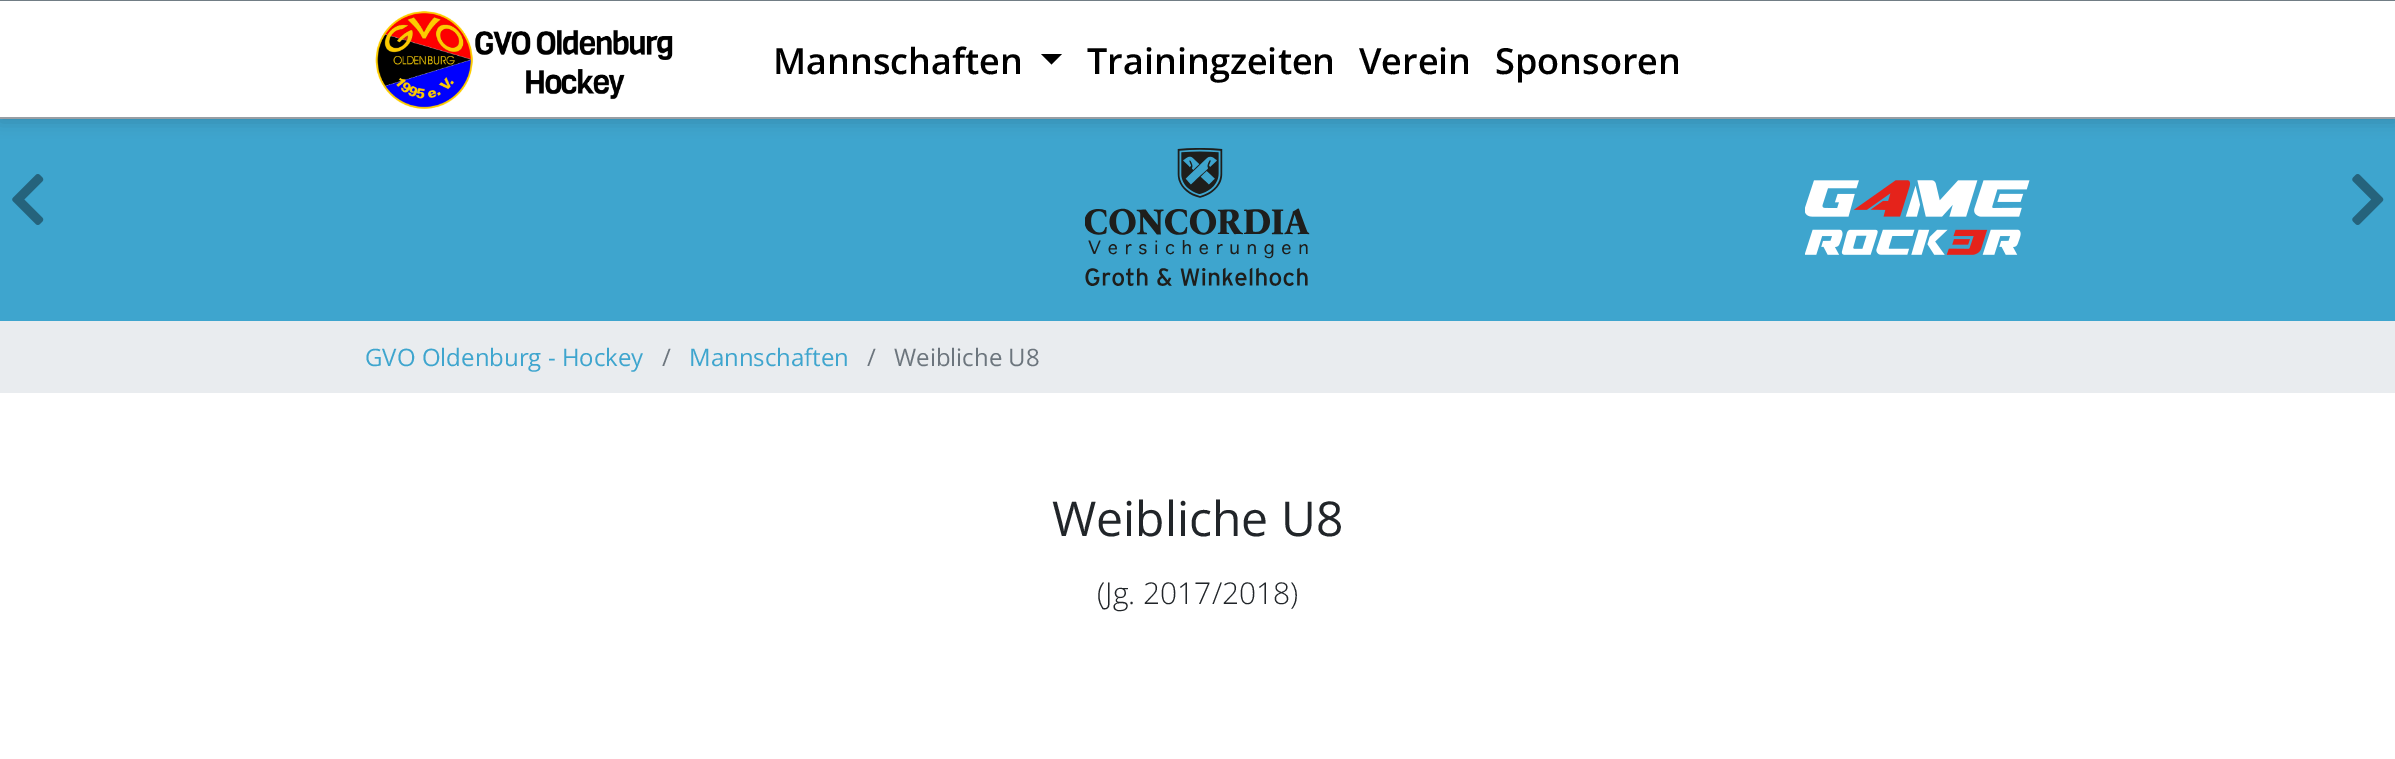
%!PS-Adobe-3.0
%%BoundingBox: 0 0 2395 759
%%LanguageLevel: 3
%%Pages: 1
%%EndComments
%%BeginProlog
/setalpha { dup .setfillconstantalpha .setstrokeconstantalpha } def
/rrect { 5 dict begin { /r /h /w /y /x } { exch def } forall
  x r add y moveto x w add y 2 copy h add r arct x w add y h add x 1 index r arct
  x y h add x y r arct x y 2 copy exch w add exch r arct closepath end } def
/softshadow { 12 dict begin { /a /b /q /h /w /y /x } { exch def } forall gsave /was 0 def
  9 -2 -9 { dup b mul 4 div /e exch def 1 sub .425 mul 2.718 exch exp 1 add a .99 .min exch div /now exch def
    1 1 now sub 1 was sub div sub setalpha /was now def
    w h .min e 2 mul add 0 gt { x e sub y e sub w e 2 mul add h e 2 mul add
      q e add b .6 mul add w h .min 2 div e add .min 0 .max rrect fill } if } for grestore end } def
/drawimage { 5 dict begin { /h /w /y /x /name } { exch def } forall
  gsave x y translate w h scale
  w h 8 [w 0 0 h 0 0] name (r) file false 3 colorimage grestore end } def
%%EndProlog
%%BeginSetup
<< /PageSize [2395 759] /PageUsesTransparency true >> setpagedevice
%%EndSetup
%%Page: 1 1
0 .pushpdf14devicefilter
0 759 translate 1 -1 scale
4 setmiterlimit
1 setgray
0 0 2395 759 rectfill
0.243 0.647 0.808 setrgbcolor
0 119 2395 202 rectfill
0 setgray
0 2 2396 120 0 7.5 0.15 softshadow
1 setgray
0 1 2395 116 rectfill
0.443 0.49 0.522 setrgbcolor
0 0 2395 1 rectfill
0.596 0.62 0.643 setrgbcolor
0 117 2395 2 rectfill
(images/1.raw) 375 11 298 98 drawimage
0 setgray
newpath 1041 54 moveto 1062 54 lineto 1051.5 64.5 lineto closepath fill
(images/2.raw) 1085 148 225 138 drawimage
(images/3.raw) 1805 180 225 75 drawimage
(images/4.raw) 12 174 32 51 drawimage
(images/5.raw) 2352 174 32 51 drawimage
0.914 0.925 0.937 setrgbcolor
0 321 2395 72 rectfill
/OpenSans-SemiBold [36 0 0 -36 0 0] selectfont
0 setgray
773 74 moveto (Mannschaften) show
1087 74 moveto (Trainingzeiten) show
1359 74 moveto (Verein) show
1495 74 moveto (Sponsoren) show
/OpenSans-Regular [24 0 0 -24 0 0] selectfont
0.243 0.647 0.808 setrgbcolor
365 366 moveto (GVO Oldenburg - Hockey) show
0.424 0.459 0.49 setrgbcolor
662 366 moveto (/) show
0.243 0.647 0.808 setrgbcolor
689 366 moveto (Mannschaften) show
0.424 0.459 0.49 setrgbcolor
867 366 moveto (/) show
894 366 moveto (Weibliche U8) show
/OpenSans-Regular [48 0 0 -48 0 0] selectfont
0.129 0.145 0.161 setrgbcolor
1052 536 moveto (Weibliche U8) show
/OpenSans-Light [30 0 0 -30 0 0] selectfont
1097 604 moveto (\(Jg. 2017/2018\)) show
.poppdf14devicefilter showpage
%%EOF
